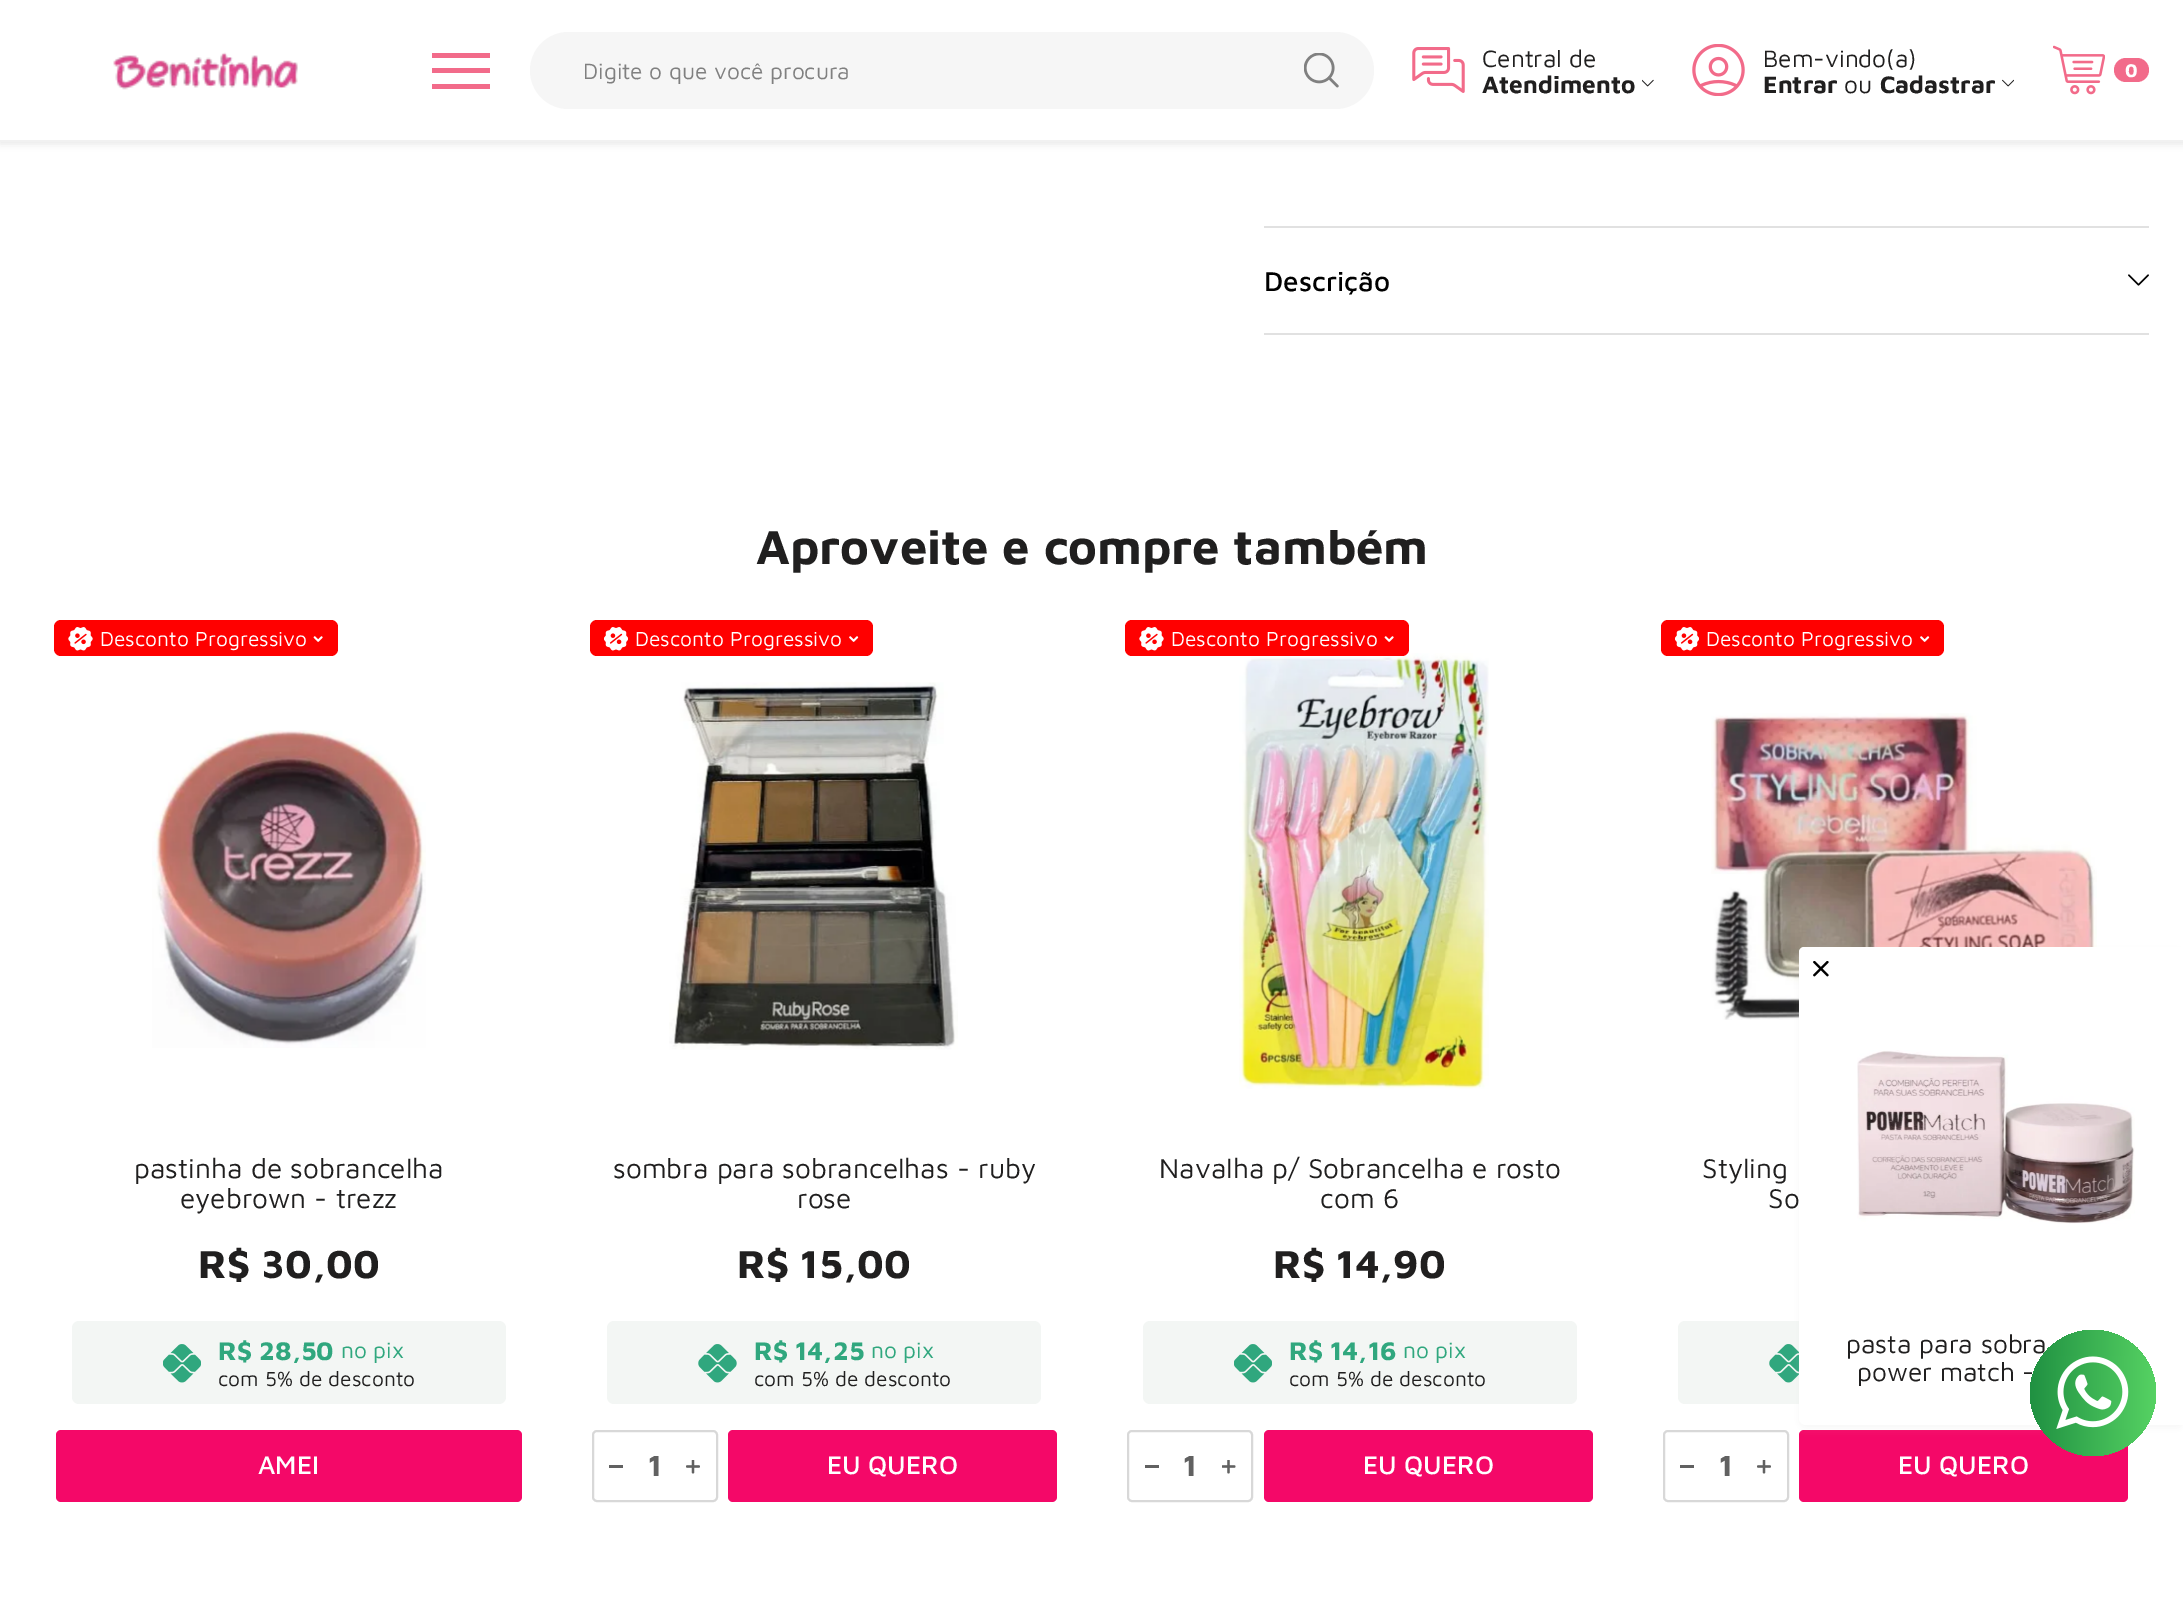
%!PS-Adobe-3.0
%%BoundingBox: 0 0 2183 1617
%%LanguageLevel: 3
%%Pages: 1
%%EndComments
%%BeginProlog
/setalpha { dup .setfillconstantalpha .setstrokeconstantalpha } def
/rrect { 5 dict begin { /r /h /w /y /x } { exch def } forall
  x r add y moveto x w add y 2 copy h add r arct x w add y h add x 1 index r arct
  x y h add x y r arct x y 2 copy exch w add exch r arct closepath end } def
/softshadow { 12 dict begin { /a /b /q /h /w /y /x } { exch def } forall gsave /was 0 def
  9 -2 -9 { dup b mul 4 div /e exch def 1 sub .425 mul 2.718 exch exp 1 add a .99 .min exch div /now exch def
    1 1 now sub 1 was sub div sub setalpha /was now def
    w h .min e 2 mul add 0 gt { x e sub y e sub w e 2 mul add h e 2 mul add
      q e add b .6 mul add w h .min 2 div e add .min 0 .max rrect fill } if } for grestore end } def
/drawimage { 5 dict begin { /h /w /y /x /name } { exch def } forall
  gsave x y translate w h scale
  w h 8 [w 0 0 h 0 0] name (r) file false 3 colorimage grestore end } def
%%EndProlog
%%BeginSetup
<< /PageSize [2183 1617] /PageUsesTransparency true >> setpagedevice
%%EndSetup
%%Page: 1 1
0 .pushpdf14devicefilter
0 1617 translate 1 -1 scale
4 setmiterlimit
1 setgray
0 0 2183 1617 rectfill
0.322 setgray
0 2 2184 142 0 3.5 0.13 softshadow
1 setgray
0 0 2183 140 rectfill
0.945 setgray
0 140 2183 2 rectfill
(images/1.raw) 113 52 185 38 drawimage
0.949 0.42 0.541 setrgbcolor
432 84 58 5 rectfill
432 53 58 5 rectfill
432 68 58 5 rectfill
0.965 setgray
530 32 844 77 38.5 rrect fill
(images/2.raw) 1304 53 35 35 drawimage
(images/3.raw) 1412 47 53 46 drawimage
(images/4.raw) 1642 79 12 8 drawimage
(images/5.raw) 1692 44 53 52 drawimage
(images/6.raw) 2002 79 12 8 drawimage
(images/7.raw) 2053 45 52 50 drawimage
0.949 0.42 0.541 setrgbcolor
2114 58 35 24 12 rrect fill
0.882 setgray
1264 226 885 2 rectfill
1264 333 885 2 rectfill
(images/8.raw) 2128 274 21 12 drawimage
1 0 0 setrgbcolor
54 620 284 36 7 rrect fill
(images/9.raw) 68 627 25 24 drawimage
(images/10.raw) 313 636 10 6 drawimage
(images/11.raw) 152 730 274 318 drawimage
0.953 0.965 0.957 setrgbcolor
72 1321 434 83 7 rrect fill
(images/12.raw) 163 1344 38 39 drawimage
0.957 0.031 0.408 setrgbcolor
56 1430 466 72 5 rrect fill
1 0 0 setrgbcolor
590 620 283 36 7 rrect fill
(images/13.raw) 604 627 24 24 drawimage
(images/14.raw) 849 636 10 6 drawimage
(images/15.raw) 669 682 289 368 drawimage
0.953 0.965 0.957 setrgbcolor
607 1321 434 83 7 rrect fill
(images/16.raw) 698 1344 39 39 drawimage
0.847 setgray
2 setlinewidth
593 1431 124 70 4 rrect stroke
0.38 setgray
609 1465 14 3 rectfill
(images/17.raw) 686 1460 14 14 drawimage
0.957 0.031 0.408 setrgbcolor
728 1430 329 72 5 rrect fill
(images/18.raw) 1239 653 250 436 drawimage
1 0 0 setrgbcolor
1125 620 284 36 7 rrect fill
(images/9.raw) 1139 627 25 24 drawimage
(images/10.raw) 1384 636 10 6 drawimage
0.953 0.965 0.957 setrgbcolor
1143 1321 434 83 7 rrect fill
(images/12.raw) 1234 1344 38 39 drawimage
0.847 setgray
1128 1431 124 70 4 rrect stroke
0.38 setgray
1145 1465 14 3 rectfill
(images/19.raw) 1222 1460 14 14 drawimage
0.957 0.031 0.408 setrgbcolor
1264 1430 329 72 5 rrect fill
1 0 0 setrgbcolor
1661 620 283 36 7 rrect fill
(images/13.raw) 1675 627 24 24 drawimage
(images/14.raw) 1920 636 10 6 drawimage
(images/20.raw) 1711 713 386 307 drawimage
0.953 0.965 0.957 setrgbcolor
1678 1321 434 83 7 rrect fill
(images/21.raw) 1769 1344 30 39 drawimage
0.847 setgray
1664 1431 124 70 4 rrect stroke
0.38 setgray
1680 1465 14 3 rectfill
(images/17.raw) 1757 1460 14 14 drawimage
0.957 0.031 0.408 setrgbcolor
1799 1430 329 72 5 rrect fill
0.804 setgray
1799 950 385 478 7 4 0.16 softshadow
1 setgray
newpath 1806 947 moveto 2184 947 lineto 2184 1425 lineto 1806 1425 lineto 1802 1425 1799 1422 1799 1418 curveto 1799 954 lineto 1799 950 1802 947 1806 947 curveto closepath fill
1799 947 44 44 5 rrect fill
(images/22.raw) 1813 961 16 16 drawimage
(images/23.raw) 1857 1050 278 174 drawimage
/MavenPro-Regular [22.75 0 0 -22.75 0 0] selectfont
0.502 setgray
583 79 moveto (Digite o que você procura) show
/MavenPro-Regular [24.5 0 0 -24.5 0 0] selectfont
0.125 0.122 0.122 setrgbcolor
1482 67 moveto (Central de) show
/MavenPro-Bold [24.5 0 0 -24.5 0 0] selectfont
1482 93 moveto (Atendimento) show
/MavenPro-Regular [24.5 0 0 -24.5 0 0] selectfont
1763 67 moveto (Bem-vindo\(a\)) show
/MavenPro-Bold [24.5 0 0 -24.5 0 0] selectfont
1763 93 moveto (Entrar) show
/MavenPro-Regular [24.5 0 0 -24.5 0 0] selectfont
1844 93 moveto (ou) show
/MavenPro-Bold [24.5 0 0 -24.5 0 0] selectfont
1880 93 moveto (Cadastrar) show
/MavenPro-Bold [19 0 0 -19 0 0] selectfont
1 setgray
2125 77 moveto (0) show
/MavenPro-Medium [28 0 0 -28 0 0] selectfont
0 setgray
1264 291 moveto (Descrição) show
/MavenPro-Bold [49 0 0 -49 0 0] selectfont
0.125 0.122 0.122 setrgbcolor
756 564 moveto (Aproveite e compre também) show
/MavenPro-Regular [21 0 0 -21 0 0] selectfont
1 setgray
100 646 moveto (Desconto Progressivo) show
/MavenPro-Regular [28 0 0 -28 0 0] selectfont
0.125 0.122 0.122 setrgbcolor
134 1178 moveto (pastinha de sobrancelha) show
180 1208 moveto (eyebrown - trezz) show
/MavenPro-Bold [40.25 0 0 -40.25 0 0] selectfont
198 1278 moveto (R$ 30,00) show
/MavenPro-Bold [26.25 0 0 -26.25 0 0] selectfont
0.188 0.655 0.494 setrgbcolor
218 1360 moveto (R$ 28,50) show
/MavenPro-Regular [22.75 0 0 -22.75 0 0] selectfont
341 1358 moveto (no pix) show
/MavenPro-Regular [21 0 0 -21 0 0] selectfont
0.125 0.122 0.122 setrgbcolor
218 1386 moveto (com 5% de desconto) show
/MavenPro-Medium [26.25 0 0 -26.25 0 0] selectfont
1 setgray
258 1474 moveto (AMEI) show
/MavenPro-Regular [21 0 0 -21 0 0] selectfont
635 646 moveto (Desconto Progressivo) show
/MavenPro-Regular [28 0 0 -28 0 0] selectfont
0.125 0.122 0.122 setrgbcolor
613 1178 moveto (sombra para sobrancelhas - ruby) show
797 1208 moveto (rose) show
/MavenPro-Bold [40.25 0 0 -40.25 0 0] selectfont
737 1278 moveto (R$ 15,00) show
/MavenPro-Bold [26.25 0 0 -26.25 0 0] selectfont
0.188 0.655 0.494 setrgbcolor
754 1360 moveto (R$ 14,25) show
/MavenPro-Regular [22.75 0 0 -22.75 0 0] selectfont
871 1358 moveto (no pix) show
/MavenPro-Regular [21 0 0 -21 0 0] selectfont
0.125 0.122 0.122 setrgbcolor
754 1386 moveto (com 5% de desconto) show
/MavenPro-Bold [30 0 0 -30 0 0] selectfont
0.38 setgray
648 1476 moveto (1) show
/MavenPro-Medium [26.25 0 0 -26.25 0 0] selectfont
1 setgray
827 1474 moveto (EU QUERO) show
/MavenPro-Regular [21 0 0 -21 0 0] selectfont
1171 646 moveto (Desconto Progressivo) show
/MavenPro-Regular [28 0 0 -28 0 0] selectfont
0.125 0.122 0.122 setrgbcolor
1159 1178 moveto (Navalha p/ Sobrancelha e rosto) show
1320 1208 moveto (com 6) show
/MavenPro-Bold [40.25 0 0 -40.25 0 0] selectfont
1273 1278 moveto (R$ 14,90) show
/MavenPro-Bold [26.25 0 0 -26.25 0 0] selectfont
0.188 0.655 0.494 setrgbcolor
1289 1360 moveto (R$ 14,16) show
/MavenPro-Regular [22.75 0 0 -22.75 0 0] selectfont
1403 1358 moveto (no pix) show
/MavenPro-Regular [21 0 0 -21 0 0] selectfont
0.125 0.122 0.122 setrgbcolor
1289 1386 moveto (com 5% de desconto) show
/MavenPro-Bold [30 0 0 -30 0 0] selectfont
0.38 setgray
1183 1476 moveto (1) show
/MavenPro-Medium [26.25 0 0 -26.25 0 0] selectfont
1 setgray
1363 1474 moveto (EU QUERO) show
/MavenPro-Regular [21 0 0 -21 0 0] selectfont
1706 646 moveto (Desconto Progressivo) show
/MavenPro-Regular [28 0 0 -28 0 0] selectfont
0.125 0.122 0.122 setrgbcolor
1702 1178 moveto (Styling) show
1768 1208 moveto (So) show
/MavenPro-Bold [30 0 0 -30 0 0] selectfont
0.38 setgray
1719 1476 moveto (1) show
/MavenPro-Medium [26.25 0 0 -26.25 0 0] selectfont
1 setgray
1898 1474 moveto (EU QUERO) show
/MavenPro-Regular [26.25 0 0 -26.25 0 0] selectfont
0.125 0.122 0.122 setrgbcolor
1846 1353 moveto (pasta para sobra) show
gsave
1820 1330 343 56 rectclip
1857 1381 moveto (power match -) show
grestore
gsave newpath 2093 1393 63 0 360 arc closepath clip newpath
<< /ShadingType 2 /ColorSpace /DeviceRGB /Coords [2030 1393 2156 1393] /Extend [true true] /Function << /FunctionType 2 /Domain [0 1] /C0 [0.125 0.569 0.259] /C1 [0.337 0.824 0.388] /N 1 >> >> shfill grestore
(images/24.raw) 2056 1356 73 73 drawimage
.poppdf14devicefilter showpage
%%EOF
